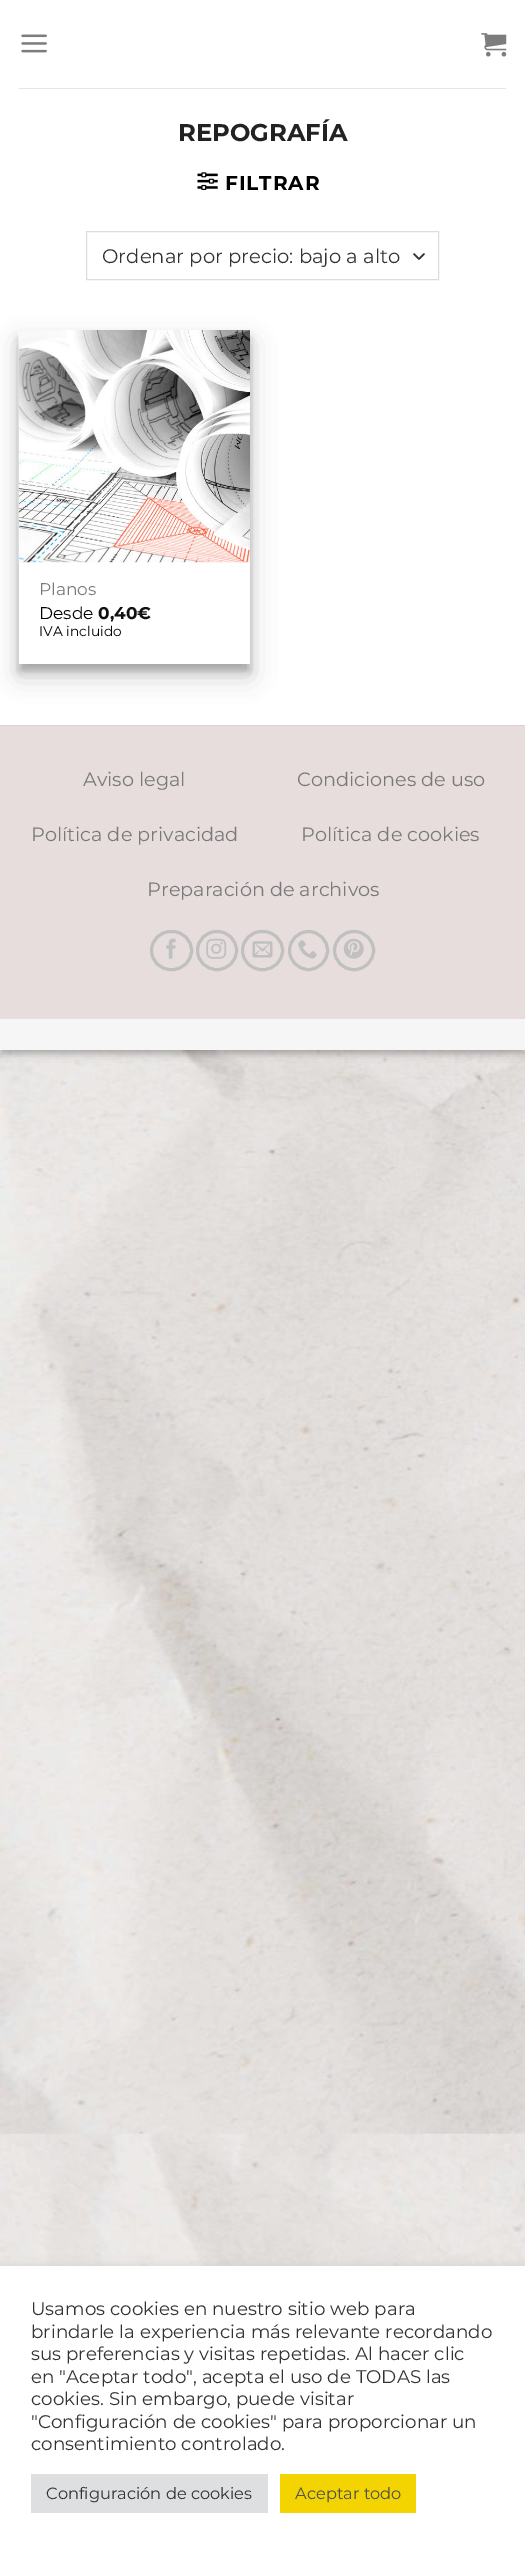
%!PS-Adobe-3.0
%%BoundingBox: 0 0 525 2550
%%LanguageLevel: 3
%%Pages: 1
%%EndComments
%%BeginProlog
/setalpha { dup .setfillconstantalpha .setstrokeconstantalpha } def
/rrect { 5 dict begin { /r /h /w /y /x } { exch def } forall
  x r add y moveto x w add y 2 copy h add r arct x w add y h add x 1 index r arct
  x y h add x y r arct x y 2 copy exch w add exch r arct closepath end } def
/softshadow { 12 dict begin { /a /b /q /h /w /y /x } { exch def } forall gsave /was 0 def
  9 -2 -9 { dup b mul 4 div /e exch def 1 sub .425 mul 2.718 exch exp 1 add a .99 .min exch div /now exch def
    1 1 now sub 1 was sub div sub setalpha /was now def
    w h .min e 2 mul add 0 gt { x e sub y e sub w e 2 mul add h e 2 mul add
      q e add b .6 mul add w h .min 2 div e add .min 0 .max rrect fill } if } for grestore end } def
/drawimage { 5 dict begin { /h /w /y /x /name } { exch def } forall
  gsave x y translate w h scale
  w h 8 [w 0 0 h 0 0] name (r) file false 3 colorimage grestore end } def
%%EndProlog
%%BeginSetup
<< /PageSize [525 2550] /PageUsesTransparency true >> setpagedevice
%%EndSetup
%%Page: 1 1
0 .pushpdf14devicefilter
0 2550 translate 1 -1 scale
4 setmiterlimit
1 setgray
0 0 525 2550 rectfill
(images/1.raw) 0 1050 525 1216 drawimage
0 setgray
0 4 525 1050 0 4 0.23 softshadow
5 9 515 1040 0 4 0.16 softshadow
1 setgray
0 0 525 725 rectfill
(images/2.raw) 21 34 26 19 drawimage
(images/3.raw) 481 33 26 24 drawimage
0.902 setgray
19 88 487 1 rectfill
(images/4.raw) 197 172 21 18 drawimage
0.2 setgray
1.7 setlinewidth
1 setlinecap
1 setlinejoin
newpath 414 254 moveto 419 259 lineto 424 254 lineto stroke
0.867 setgray
1 setlinewidth
0 setlinecap
0 setlinejoin
86.5 231.5 352 48 rectstroke
0 setgray
19 338 231 333 0 4 0.22 softshadow
19 343 231 333 0 12.5 0.19 softshadow
1 setgray
19 562 231 102 rectfill
(images/5.raw) 18 330 232 233 drawimage
0.906 0.867 0.867 setrgbcolor
0 726 525 293 rectfill
0.859 0.824 0.824 setrgbcolor
0 725 525 1 rectfill
0.753 setgray
3 setlinewidth
151.5 931.5 40 38 19 rrect stroke
(images/6.raw) 166 938 10 21 drawimage
197.5 931.5 39 38 19 rrect stroke
(images/7.raw) 206 938 21 21 drawimage
242.5 931.5 40 38 19 rrect stroke
(images/8.raw) 252 941 21 17 drawimage
newpath 308.5 950.5 19 0 360 arc closepath stroke
(images/9.raw) 298 940 19 19 drawimage
334.5 931.5 39 38 19 rrect stroke
(images/10.raw) 343 938 21 21 drawimage
0.965 setgray
0 1019 525 31 rectfill
0.675 0.671 0.671 setrgbcolor
0 2265 525 284 0 6 0.3 softshadow
1 setgray
0 2266 525 284 rectfill
0.871 0.875 0.878 setrgbcolor
31 2474 237 39 rectfill
0.953 0.827 0 setrgbcolor
280 2474 136 39 rectfill
/Montserrat-Bold [24.25 0 0 -24.25 0 0] selectfont
0.133 setgray
178 141 moveto (REPOGRAFÍA) show
/Montserrat-Bold [20 0 0 -20 0 0] selectfont
0 setgray
225 190 moveto 1 0 (FILTRAR) ashow
/Montserrat-Regular [19.6 0 0 -19.6 0 0] selectfont
0.2 setgray
102 263 moveto (Ordenar por precio: bajo a alto) show
/Montserrat-Regular [17 0 0 -17 0 0] selectfont
0.475 setgray
39 595 moveto (Planos) show
0 setgray
39 619 moveto (Desde) show
/Montserrat-Bold [17 0 0 -17 0 0] selectfont
0.067 setgray
98 619 moveto (0,40€) show
/Montserrat-Regular [13.75 0 0 -13.75 0 0] selectfont
0 setgray
39 636 moveto (IVA incluido) show
/Montserrat-Regular [19.25 0 0 -19.25 0 0] selectfont
0.475 setgray
83 786 moveto (Aviso legal) show
297 786 moveto (Condiciones de uso) show
31 841 moveto (Política de privacidad) show
301 841 moveto (Política de cookies) show
147 896 moveto (Preparación de archivos) show
/Montserrat-Regular [18.3 0 0 -18.3 0 0] selectfont
0.2 setgray
31 2315 moveto (Usamos cookies en nuestro sitio web para) show
31 2338 moveto (brindarle la experiencia más relevante recordando) show
31 2360 moveto (sus preferencias y visitas repetidas. Al hacer clic) show
31 2383 moveto (en "Aceptar todo", acepta el uso de TODAS las) show
31 2405 moveto (cookies. Sin embargo, puede visitar) show
31 2428 moveto ("Configuración de cookies" para proporcionar un) show
31 2450 moveto (consentimiento controlado.) show
/Montserrat-Regular [16.25 0 0 -16.25 0 0] selectfont
46 2499 moveto (Configuración de cookies) show
0.31 setgray
295 2499 moveto (Aceptar todo) show
.poppdf14devicefilter showpage
%%EOF
